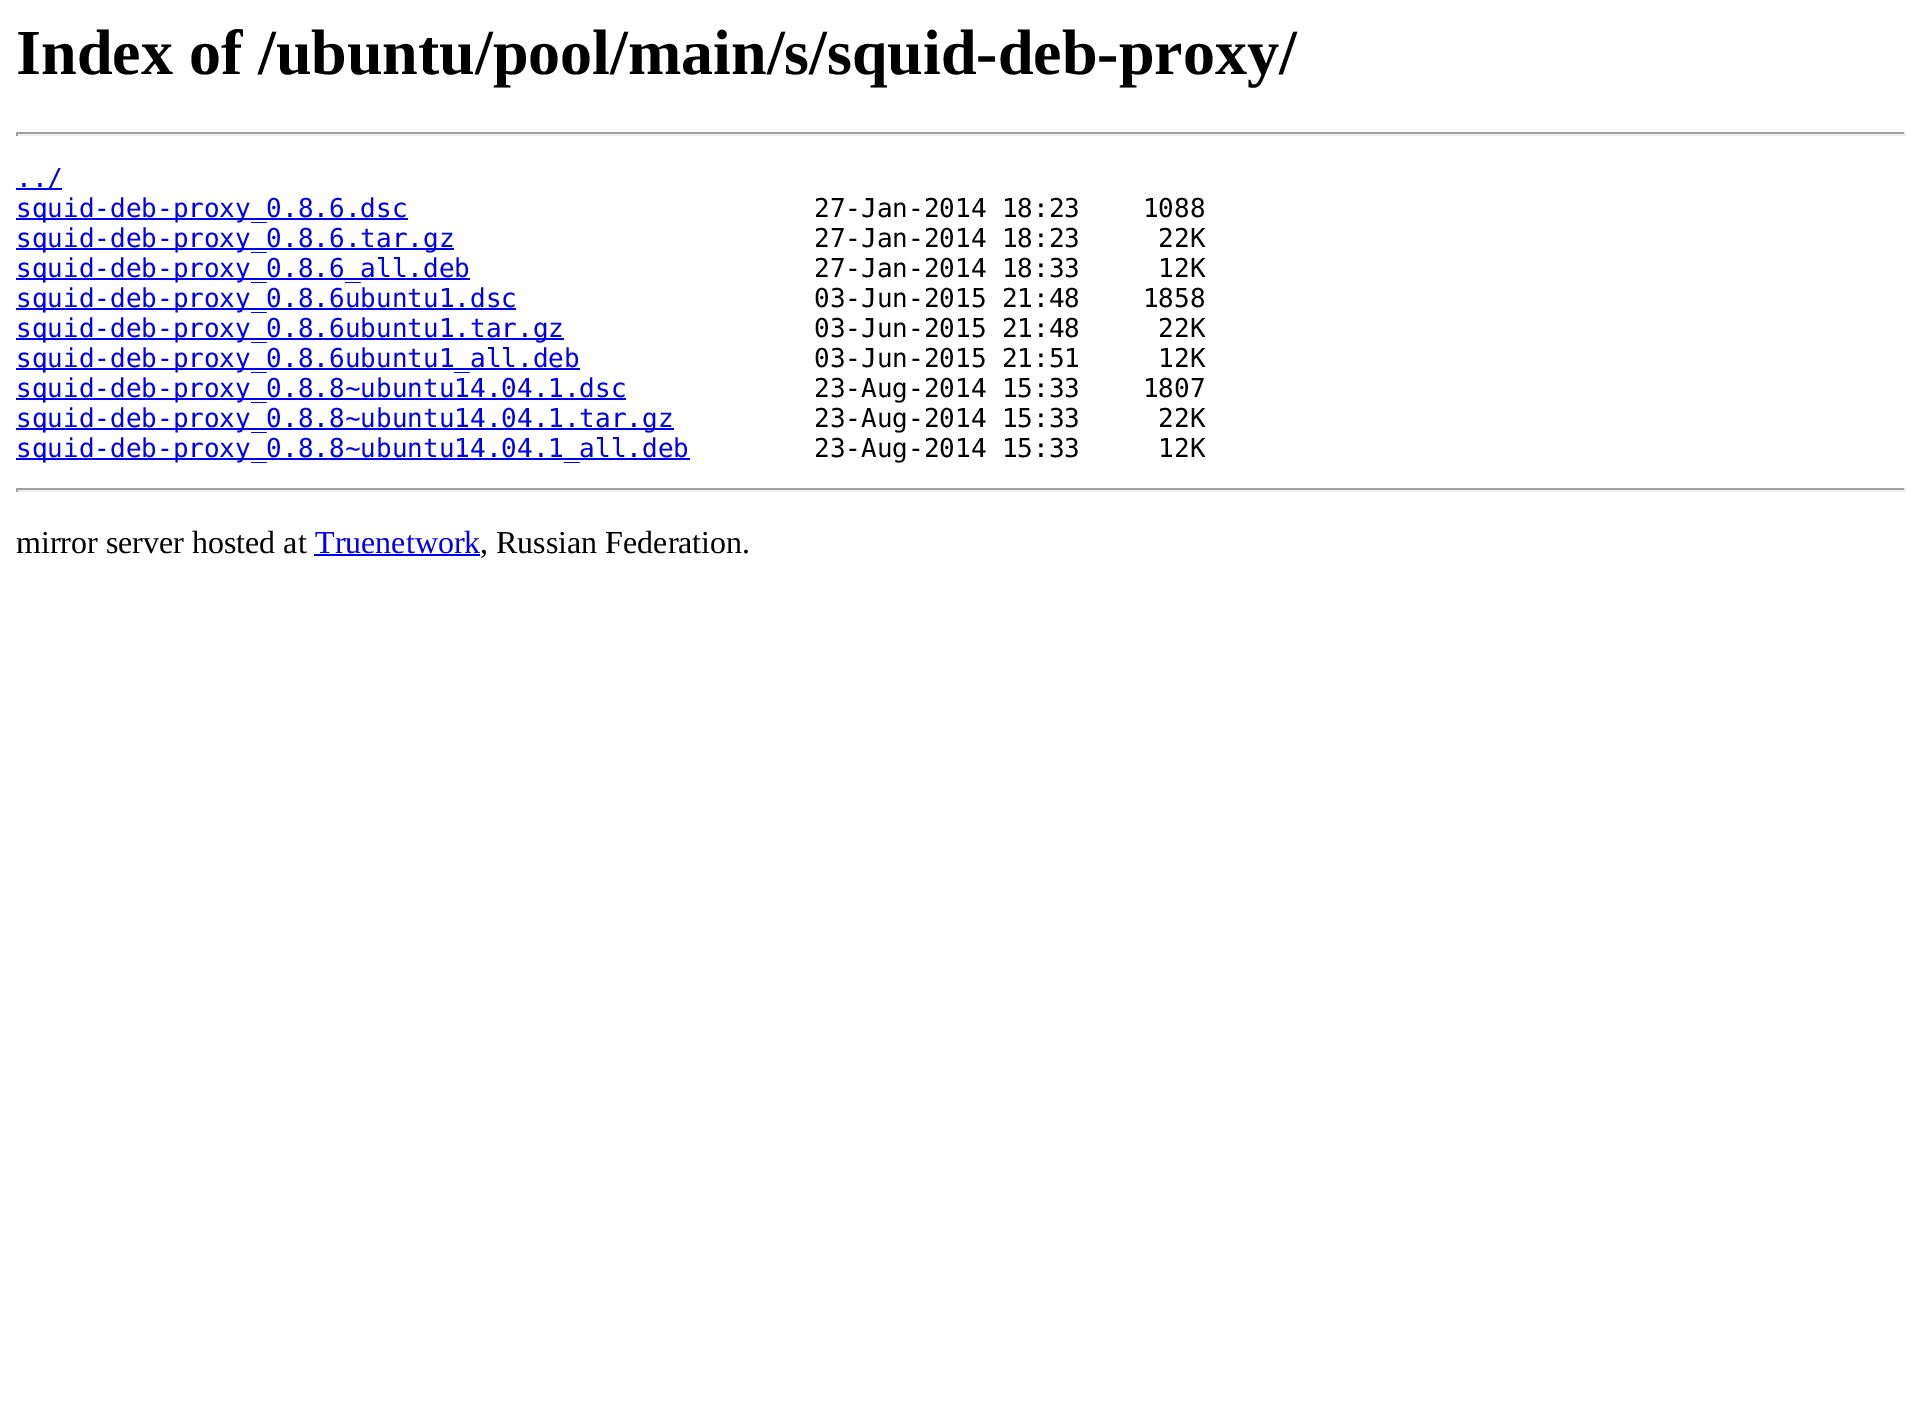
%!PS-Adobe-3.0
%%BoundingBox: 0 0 1921 1411
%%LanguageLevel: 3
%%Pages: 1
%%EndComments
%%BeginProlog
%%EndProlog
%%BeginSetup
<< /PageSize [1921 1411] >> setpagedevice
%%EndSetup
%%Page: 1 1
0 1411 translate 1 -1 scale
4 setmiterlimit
1 setgray
0 0 1921 1411 rectfill
0.624 setgray
16 132 1890 2 rectfill
0.933 setgray
1904 132 2 4 rectfill
16 134 1890 2 rectfill
0.624 setgray
16 132 2 4 rectfill
0 0 0.933 setrgbcolor
16 188 46 2 rectfill
16 218 392 2 rectfill
16 248 438 2 rectfill
16 278 454 2 rectfill
16 308 500 2 rectfill
16 338 548 2 rectfill
16 368 564 2 rectfill
16 398 610 2 rectfill
16 428 658 2 rectfill
16 458 674 2 rectfill
0.624 setgray
16 488 1890 2 rectfill
0.933 setgray
1904 488 2 4 rectfill
16 490 1890 2 rectfill
0.624 setgray
16 488 2 4 rectfill
0 0 0.933 setrgbcolor
314 554 166 2 rectfill
/LiberationSerif-Bold [64 0 0 -64 0 0] selectfont
0 setgray
16 74 moveto (Index of /ubuntu/pool/main/s/squid-deb-proxy/) show
/DejaVuSansMono-Regular [26 0 0 -26 0 0] selectfont
0 0 0.933 setrgbcolor
16 187 moveto (../) show
16 217 moveto (squid-deb-proxy_0.8.6.dsc) show
0 setgray
814 217 moveto (27-Jan-2014 18:23    1088) show
0 0 0.933 setrgbcolor
16 247 moveto (squid-deb-proxy_0.8.6.tar.gz) show
0 setgray
814 247 moveto (27-Jan-2014 18:23     22K) show
0 0 0.933 setrgbcolor
16 277 moveto (squid-deb-proxy_0.8.6_all.deb) show
0 setgray
814 277 moveto (27-Jan-2014 18:33     12K) show
0 0 0.933 setrgbcolor
16 307 moveto (squid-deb-proxy_0.8.6ubuntu1.dsc) show
0 setgray
814 307 moveto (03-Jun-2015 21:48    1858) show
0 0 0.933 setrgbcolor
16 337 moveto (squid-deb-proxy_0.8.6ubuntu1.tar.gz) show
0 setgray
814 337 moveto (03-Jun-2015 21:48     22K) show
0 0 0.933 setrgbcolor
16 367 moveto (squid-deb-proxy_0.8.6ubuntu1_all.deb) show
0 setgray
814 367 moveto (03-Jun-2015 21:51     12K) show
0 0 0.933 setrgbcolor
16 397 moveto (squid-deb-proxy_0.8.8~ubuntu14.04.1.dsc) show
0 setgray
814 397 moveto (23-Aug-2014 15:33    1807) show
0 0 0.933 setrgbcolor
16 427 moveto (squid-deb-proxy_0.8.8~ubuntu14.04.1.tar.gz) show
0 setgray
814 427 moveto (23-Aug-2014 15:33     22K) show
0 0 0.933 setrgbcolor
16 457 moveto (squid-deb-proxy_0.8.8~ubuntu14.04.1_all.deb) show
0 setgray
814 457 moveto (23-Aug-2014 15:33     12K) show
/LiberationSerif-Regular [32 0 0 -32 0 0] selectfont
16 553 moveto (mirror server hosted at) show
0 0 0.933 setrgbcolor
315 553 moveto (Truenetwork) show
0 setgray
480 553 moveto (, Russian Federation.) show
showpage
%%EOF
